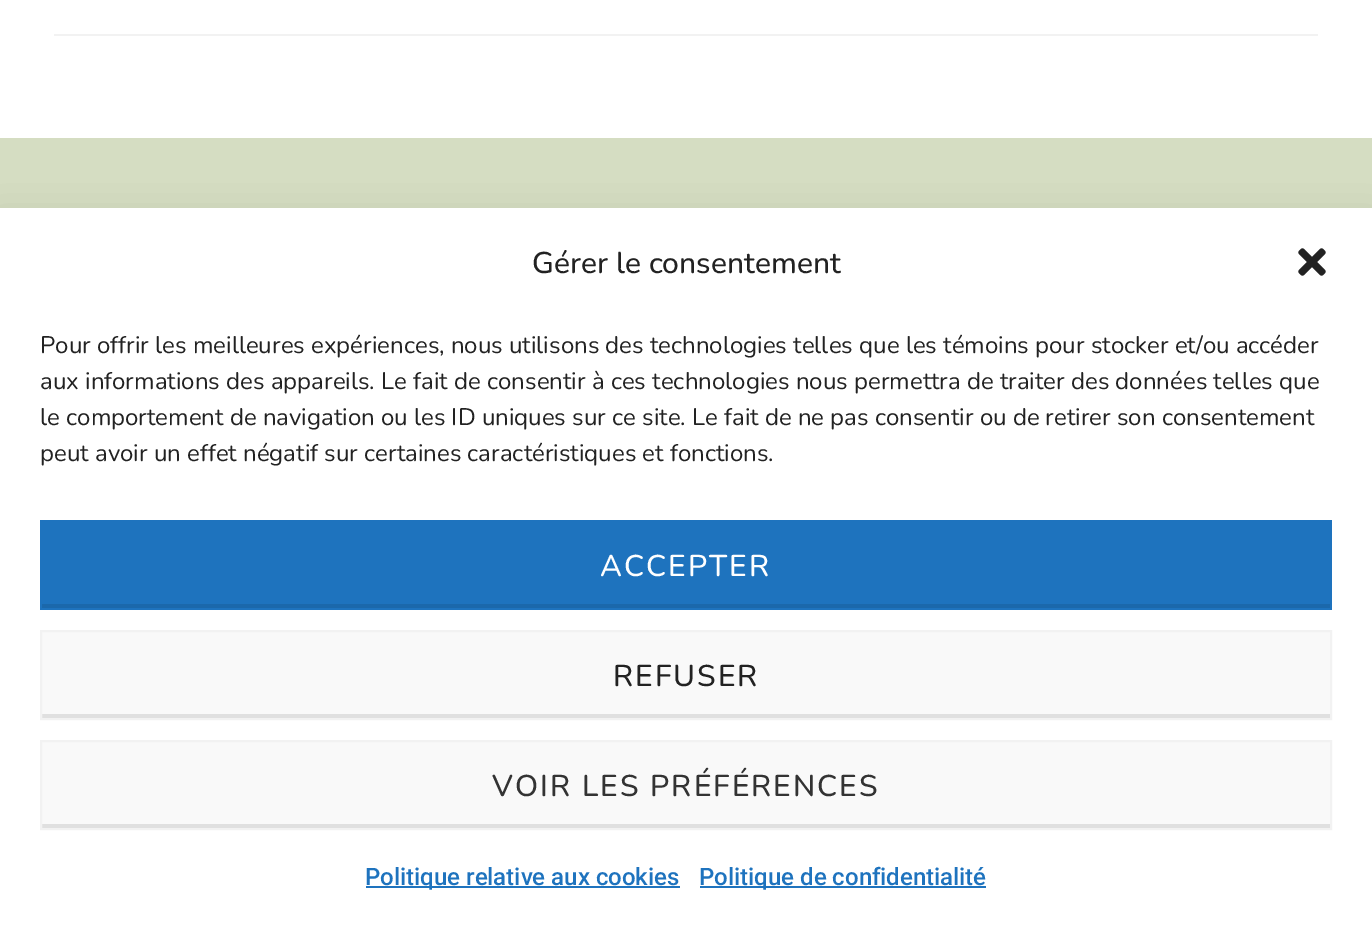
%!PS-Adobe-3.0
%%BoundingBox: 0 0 1372 931
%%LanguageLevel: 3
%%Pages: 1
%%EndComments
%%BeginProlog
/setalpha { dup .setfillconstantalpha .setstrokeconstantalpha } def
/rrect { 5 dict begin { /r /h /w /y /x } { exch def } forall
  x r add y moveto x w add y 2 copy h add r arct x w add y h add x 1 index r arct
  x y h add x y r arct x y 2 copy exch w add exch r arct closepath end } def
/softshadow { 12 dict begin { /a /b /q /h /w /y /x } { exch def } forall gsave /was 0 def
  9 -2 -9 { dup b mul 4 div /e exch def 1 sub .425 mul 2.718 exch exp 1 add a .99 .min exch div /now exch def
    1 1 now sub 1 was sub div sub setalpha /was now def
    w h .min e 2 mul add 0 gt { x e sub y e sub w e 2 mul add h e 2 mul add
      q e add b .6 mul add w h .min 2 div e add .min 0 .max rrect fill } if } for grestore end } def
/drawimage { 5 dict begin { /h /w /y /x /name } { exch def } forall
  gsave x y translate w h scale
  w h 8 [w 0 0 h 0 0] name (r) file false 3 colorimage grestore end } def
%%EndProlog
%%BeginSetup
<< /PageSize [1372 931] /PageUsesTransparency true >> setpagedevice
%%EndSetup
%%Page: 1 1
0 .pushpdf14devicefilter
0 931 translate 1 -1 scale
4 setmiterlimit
1 setgray
0 0 1372 931 rectfill
0.949 setgray
54 34 1264 2 rectfill
0.835 0.867 0.761 setrgbcolor
0 138 1372 58 rectfill
newpath 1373 208 moveto 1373 196 lineto -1 196 lineto -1 396 lineto closepath fill
0 setgray
0 228 1372 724 0 20 0.19 softshadow
1 setgray
0 208 1372 723 rectfill
(images/1.raw) 1298 248 28 28 drawimage
0.118 0.451 0.745 setrgbcolor
40 520 1292 90 rectfill
0.106 0.408 0.671 setrgbcolor
42 604 1288 4 rectfill
0.976 setgray
42 632 1288 82 rectfill
0.878 setgray
42 714 1288 4 rectfill
0.949 setgray
2 setlinewidth
41 631 1290 88 rectstroke
0.976 setgray
42 742 1288 82 rectfill
0.878 setgray
42 824 1288 4 rectfill
0.949 setgray
41 741 1290 88 rectstroke
0.118 0.451 0.745 setrgbcolor
366 886 314 2 rectfill
700 886 286 2 rectfill
/Nunito-Medium [30 0 0 -30 0 0] selectfont
0.133 setgray
532 273 moveto (Gérer le consentement) show
/Nunito-Regular [24 0 0 -24 0 0] selectfont
40 353 moveto (Pour offrir les meilleures expériences, nous utilisons des technologies telles que les témoins pour stocker et/ou accéder) show
40 389 moveto (aux informations des appareils. Le fait de consentir à ces technologies nous permettra de traiter des données telles que) show
40 425 moveto (le comportement de navigation ou les ID uniques sur ce site. Le fait de ne pas consentir ou de retirer son consentement) show
40 461 moveto (peut avoir un effet négatif sur certaines caractéristiques et fonctions.) show
/Nunito-Medium [30 0 0 -30 0 0] selectfont
1 setgray
600 576 moveto 2 0 (ACCEPTER) ashow
0.133 setgray
613 686 moveto 2 0 (REFUSER) ashow
0.2 setgray
492 796 moveto 2 0 (VOIR LES PRÉFÉRENCES) ashow
/Roboto-Medium [24 0 0 -24 0 0] selectfont
0.118 0.451 0.745 setrgbcolor
365 885 moveto (Politique relative aux cookies) show
699 885 moveto (Politique de confidentialité) show
.poppdf14devicefilter showpage
%%EOF
